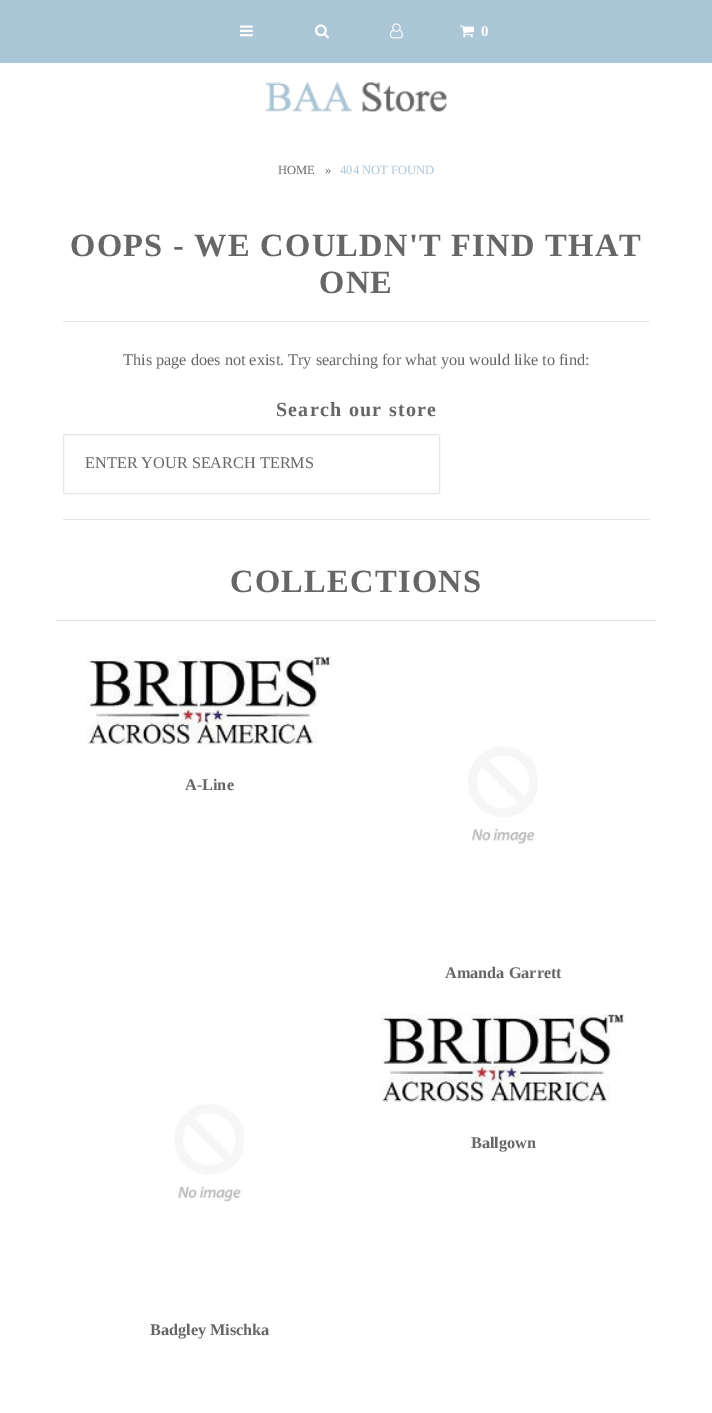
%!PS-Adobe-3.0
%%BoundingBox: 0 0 712 1413
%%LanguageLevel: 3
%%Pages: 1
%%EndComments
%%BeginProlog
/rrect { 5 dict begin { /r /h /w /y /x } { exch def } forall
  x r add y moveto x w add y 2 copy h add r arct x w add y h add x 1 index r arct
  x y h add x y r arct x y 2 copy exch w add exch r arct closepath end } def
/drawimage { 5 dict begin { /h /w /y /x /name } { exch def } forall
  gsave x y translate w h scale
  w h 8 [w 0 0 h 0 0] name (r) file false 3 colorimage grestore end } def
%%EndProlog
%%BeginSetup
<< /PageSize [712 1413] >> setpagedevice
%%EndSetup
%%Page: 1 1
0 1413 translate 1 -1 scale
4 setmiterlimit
1 setgray
0 0 712 1413 rectfill
0.671 0.776 0.839 setrgbcolor
0 0 712 63 rectfill
(images/1.raw) 240 25 13 12 drawimage
(images/2.raw) 315 24 14 15 drawimage
(images/3.raw) 390 23 13 16 drawimage
(images/4.raw) 460 25 14 13 drawimage
(images/5.raw) 265 82 182 31 drawimage
0.898 setgray
63 321 587 1 rectfill
63 519 587 1 rectfill
63.5 434.5 376 59 2 rrect stroke
56 620 600 1 rectfill
(images/6.raw) 86 656 247 89 drawimage
(images/7.raw) 468 746 70 98 drawimage
(images/8.raw) 380 1013 246 90 drawimage
(images/9.raw) 174 1104 70 98 drawimage
/LiberationSerif-Bold [15 0 0 -15 0 0] selectfont
1 setgray
481 36 moveto 1.25 0 (0) ashow
/LiberationSerif-Regular [12.5 0 0 -12.5 0 0] selectfont
0.4 setgray
278 174 moveto (HOME) show
325 174 moveto (») show
0.671 0.776 0.839 setrgbcolor
340 174 moveto (404 NOT FOUND) show
/LiberationSerif-Bold [32.5 0 0 -32.5 0 0] selectfont
0.4 setgray
70 256 moveto 1.25 0 (OOPS - WE COULDN'T FIND THAT) ashow
319 293 moveto 1.25 0 (ONE) ashow
/LiberationSerif-Regular [16.25 0 0 -16.25 0 0] selectfont
123 365 moveto (This page does not exist. Try searching for what you would like to find:) show
/LiberationSerif-Bold [20 0 0 -20 0 0] selectfont
276 416 moveto 1.25 0 (Search our store) ashow
/LiberationSerif-Regular [16.25 0 0 -16.25 0 0] selectfont
85 468 moveto (ENTER YOUR SEARCH TERMS) show
/LiberationSerif-Bold [32.5 0 0 -32.5 0 0] selectfont
230 592 moveto 1.25 0 (COLLECTIONS) ashow
/LiberationSerif-Bold [16.25 0 0 -16.25 0 0] selectfont
185 790 moveto (A-Line) show
445 978 moveto (Amanda Garrett) show
471 1148 moveto (Ballgown) show
150 1335 moveto (Badgley Mischka) show
showpage
%%EOF
